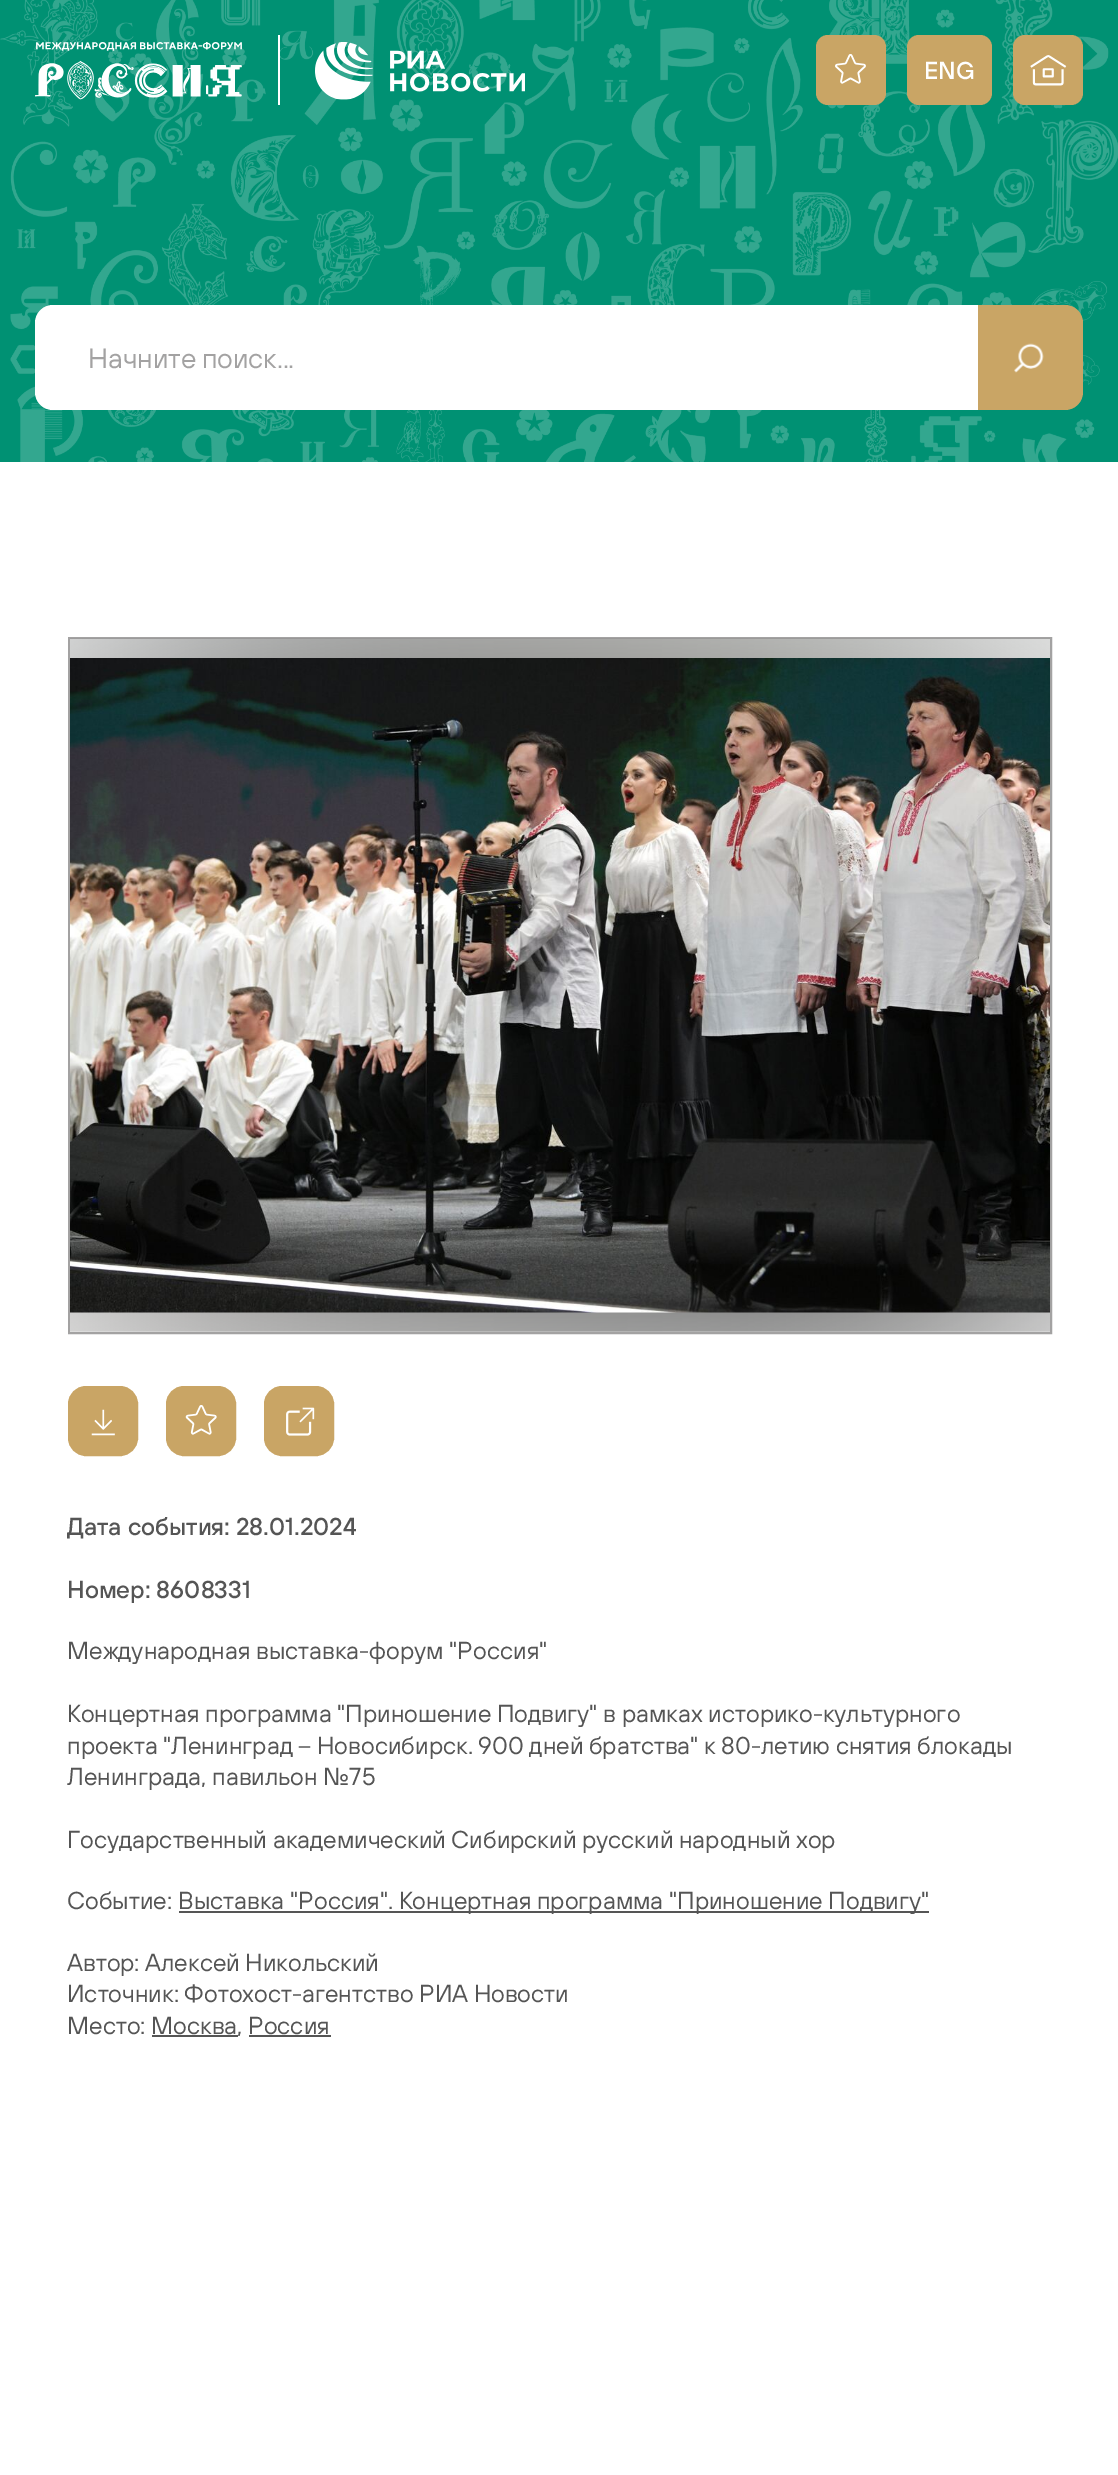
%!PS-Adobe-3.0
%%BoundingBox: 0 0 1118 2475
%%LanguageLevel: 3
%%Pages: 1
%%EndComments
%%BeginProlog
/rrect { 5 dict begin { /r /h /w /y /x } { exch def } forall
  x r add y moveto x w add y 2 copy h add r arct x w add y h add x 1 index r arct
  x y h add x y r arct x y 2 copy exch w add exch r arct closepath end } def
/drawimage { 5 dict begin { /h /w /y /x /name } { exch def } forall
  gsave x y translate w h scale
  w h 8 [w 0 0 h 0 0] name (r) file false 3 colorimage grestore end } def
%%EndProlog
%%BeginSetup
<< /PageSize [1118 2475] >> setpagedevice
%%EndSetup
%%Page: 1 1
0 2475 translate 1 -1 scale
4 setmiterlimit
1 setgray
0 0 1118 2475 rectfill
(images/1.raw) 0 0 1118 462 drawimage
(images/2.raw) 35 42 207 58 drawimage
278 35 2 70 rectfill
(images/3.raw) 315 42 210 58 drawimage
0.788 0.647 0.396 setrgbcolor
816 35 70 70 12 rrect fill
(images/4.raw) 835 54 31 30 drawimage
907 35 85 70 12 rrect fill
1013 35 70 70 12 rrect fill
(images/5.raw) 1030 55 37 31 drawimage
1 setgray
newpath 53 305 moveto 978 305 lineto 978 410 lineto 53 410 lineto 43 410 35 402 35 392 curveto 35 323 lineto 35 313 43 305 53 305 curveto closepath fill
0.788 0.647 0.396 setrgbcolor
newpath 978 305 moveto 1065 305 lineto 1075 305 1083 313 1083 323 curveto 1083 392 lineto 1083 402 1075 410 1065 410 curveto 978 410 lineto closepath fill
(images/6.raw) 1014 343 30 30 drawimage
0.639 0.635 0.635 setrgbcolor
2 setlinewidth
69 638 982 695 rectstroke
(images/7.raw) 70 638 980 694 drawimage
(images/8.raw) 70 658 980 655 drawimage
0.788 0.647 0.396 setrgbcolor
69 1387 68 68 17 rrect gsave fill grestore
stroke
(images/9.raw) 91 1409 24 27 drawimage
167 1387 68 68 17 rrect gsave fill grestore
stroke
(images/10.raw) 185 1405 32 30 drawimage
265 1387 68 68 17 rrect gsave fill grestore
stroke
(images/11.raw) 286 1407 29 29 drawimage
0.333 setgray
179 1911 750 2 rectfill
152 2035 86 2 rectfill
249 2035 82 2 rectfill
/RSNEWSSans-Medium [24.5 0 0 -24.5 0 0] selectfont
1 setgray
924 79 moveto (ENG) show
/RSNEWSSans-Regular [28 0 0 -28 0 0] selectfont
0.639 0.635 0.635 setrgbcolor
88 368 moveto -1 0 32 (Начните поиск...) widthshow
/RSNEWSSans-Medium [24.5 0 0 -24.5 0 0] selectfont
0.333 setgray
67 1535 moveto (Дата события: 28.01.2024) show
67 1598 moveto (Номер: 8608331) show
/RSNEWSSans-Regular [24.5 0 0 -24.5 0 0] selectfont
67 1659 moveto (Международная выставка-форум "Россия") show
67 1722 moveto (Концертная программа "Приношение Подвигу" в рамках историко-культурного) show
67 1754 moveto (проекта "Ленинград – Новосибирск. 900 дней братства" к 80-летию снятия блокады) show
67 1785 moveto (Ленинграда, павильон №75) show
67 1848 moveto (Государственный академический Сибирский русский народный хор) show
67 1909 moveto (Cобытие:) show
178 1909 moveto (Выставка "Россия". Концертная программа "Приношение Подвигу") show
67 1971 moveto (Автор: Алексей Никольский) show
67 2002 moveto (Источник: Фотохост-агентство РИА Новости) show
67 2034 moveto (Место: Москва, Россия) show
showpage
%%EOF
